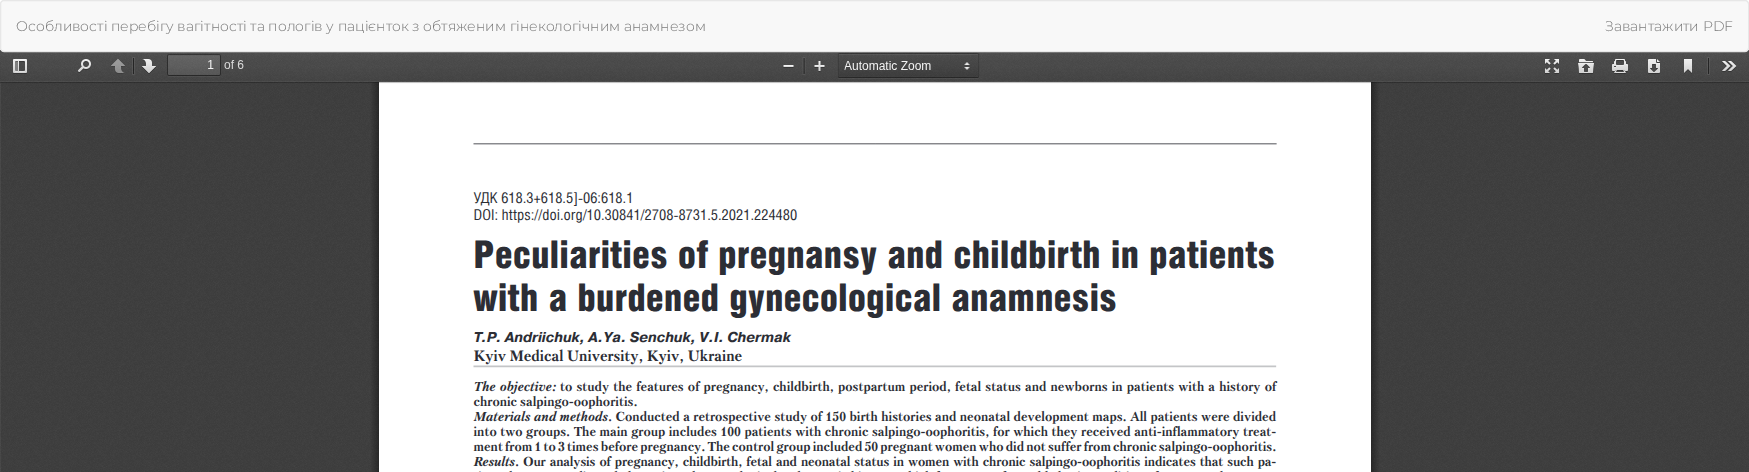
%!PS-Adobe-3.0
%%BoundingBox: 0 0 1749 472
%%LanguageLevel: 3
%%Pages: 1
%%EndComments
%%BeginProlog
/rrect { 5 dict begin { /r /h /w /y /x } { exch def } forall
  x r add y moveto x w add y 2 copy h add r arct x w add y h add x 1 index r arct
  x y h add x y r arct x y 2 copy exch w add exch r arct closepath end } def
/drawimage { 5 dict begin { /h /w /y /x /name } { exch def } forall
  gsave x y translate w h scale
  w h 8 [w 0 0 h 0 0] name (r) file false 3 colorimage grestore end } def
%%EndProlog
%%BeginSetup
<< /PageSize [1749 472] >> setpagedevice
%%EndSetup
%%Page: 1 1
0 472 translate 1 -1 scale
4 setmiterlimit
1 setgray
0 0 1749 472 rectfill
(images/1.raw) 0 50 1749 422 drawimage
0.973 setgray
0.5 0.5 1748 51 3.5 rrect gsave fill grestore
0.906 setgray
stroke
/Montserrat-Light [14 0 0 -14 0 0] selectfont
0.467 setgray
16 31 moveto (Особливості перебігу вагітності та пологів у пацієнток з обтяженим гінекологічним анамнезом) show
1605 31 moveto (Завантажити PDF) show
showpage
%%EOF
